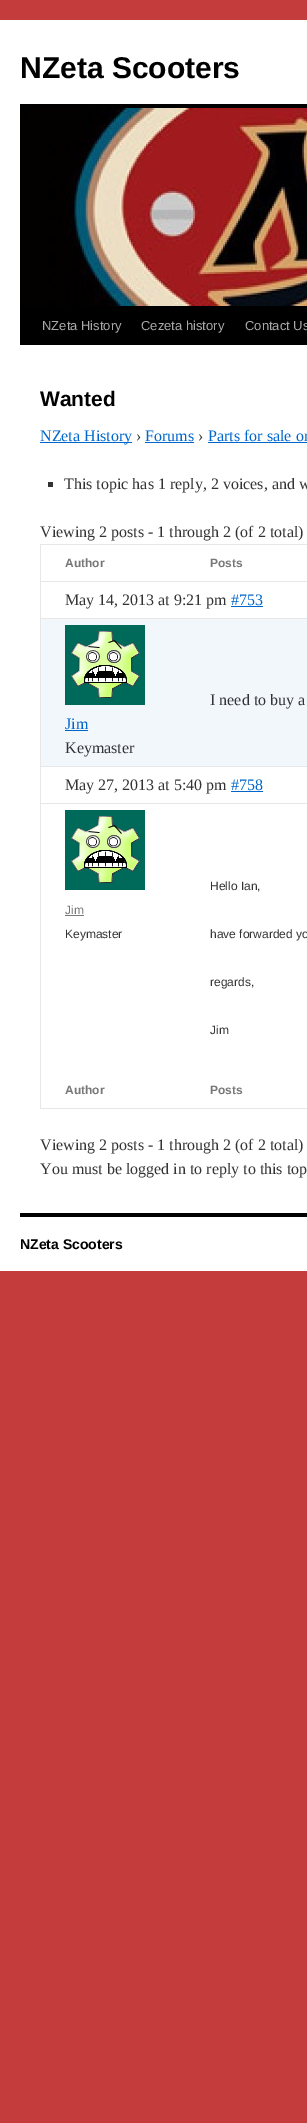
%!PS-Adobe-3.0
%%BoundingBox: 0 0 307 2123
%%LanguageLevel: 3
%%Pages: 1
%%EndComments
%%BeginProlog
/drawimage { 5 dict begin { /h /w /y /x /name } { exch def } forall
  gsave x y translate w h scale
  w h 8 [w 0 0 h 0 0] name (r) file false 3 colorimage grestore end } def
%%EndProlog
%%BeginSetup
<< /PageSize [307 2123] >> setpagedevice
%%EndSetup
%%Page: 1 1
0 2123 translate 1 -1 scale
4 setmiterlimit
0.773 0.235 0.235 setrgbcolor
0 0 307 2123 rectfill
1 setgray
0 20 307 1251 rectfill
0 setgray
20 104 287 4 rectfill
20 306 287 39 rectfill
(images/1.raw) 20 108 287 198 drawimage
0 0.4 0.8 setrgbcolor
40 442 92 1 rectfill
145 442 49 1 rectfill
208 442 99 1 rectfill
0.2 setgray
48 482 5 5 rectfill
0.906 setgray
40 544 267 1 rectfill
40 1108 267 1 rectfill
40 544 1 565 rectfill
40 581 267 1 rectfill
0 0.4 0.8 setrgbcolor
231 606 32 1 rectfill
0.906 setgray
40 618 267 1 rectfill
0.949 0.969 0.988 setrgbcolor
41 619 266 147 rectfill
(images/2.raw) 65 625 80 80 drawimage
0 0.4 0.8 setrgbcolor
65 730 23 1 rectfill
0.906 setgray
40 766 267 1 rectfill
0 0.4 0.8 setrgbcolor
231 791 32 1 rectfill
(images/2.raw) 65 810 80 80 drawimage
0.467 setgray
65 915 19 1 rectfill
0.906 setgray
40 803 267 1 rectfill
0 setgray
20 1213 287 4 rectfill
/LiberationSans-Bold [30 0 0 -30 0 0] selectfont
20 78 moveto (NZeta Scooters) show
/LiberationSans-Regular [13 0 0 -13 0 0] selectfont
0.667 setgray
42 330 moveto (NZeta History) show
141 330 moveto (Cezeta history) show
245 330 moveto (Contact Us) show
/LiberationSans-Bold [21 0 0 -21 0 0] selectfont
0 setgray
40 406 moveto (Wanted) show
/LiberationSerif-Regular [16 0 0 -16 0 0] selectfont
0 0.4 0.8 setrgbcolor
40 441 moveto (NZeta History) show
0.2 setgray
136 441 moveto (›) show
0 0.4 0.8 setrgbcolor
145 441 moveto (Forums) show
0.2 setgray
198 441 moveto (›) show
0 0.4 0.8 setrgbcolor
208 441 moveto (Parts for sale or) show
0.2 setgray
64 489 moveto (This topic has 1 reply, 2 voices, and w) show
40 537 moveto (Viewing 2 posts - 1 through 2 \(of 2 total\)) show
/LiberationSans-Bold [12 0 0 -12 0 0] selectfont
0.467 setgray
65 567 moveto (Author) show
210 567 moveto (Posts) show
/LiberationSerif-Regular [16 0 0 -16 0 0] selectfont
0.2 setgray
65 605 moveto (May 14, 2013 at 9:21 pm) show
0 0.4 0.8 setrgbcolor
231 605 moveto (#753) show
0.2 setgray
210 705 moveto (I need to buy a) show
0 0.4 0.8 setrgbcolor
65 729 moveto (Jim) show
0.2 setgray
65 753 moveto (Keymaster) show
65 790 moveto (May 27, 2013 at 5:40 pm) show
0 0.4 0.8 setrgbcolor
231 790 moveto (#758) show
/LiberationSans-Regular [12 0 0 -12 0 0] selectfont
0.467 setgray
65 914 moveto (Jim) show
0.2 setgray
65 938 moveto (Keymaster) show
210 890 moveto (Hello Ian,) show
210 938 moveto (have forwarded yo) show
210 986 moveto (regards,) show
210 1034 moveto (Jim) show
/LiberationSans-Bold [12 0 0 -12 0 0] selectfont
0.467 setgray
65 1094 moveto (Author) show
210 1094 moveto (Posts) show
/LiberationSerif-Regular [16 0 0 -16 0 0] selectfont
0.2 setgray
40 1150 moveto (Viewing 2 posts - 1 through 2 \(of 2 total\)) show
40 1174 moveto (You must be logged in to reply to this top) show
/LiberationSans-Bold [14 0 0 -14 0 0] selectfont
0 setgray
20 1249 moveto (NZeta Scooters) show
showpage
%%EOF
